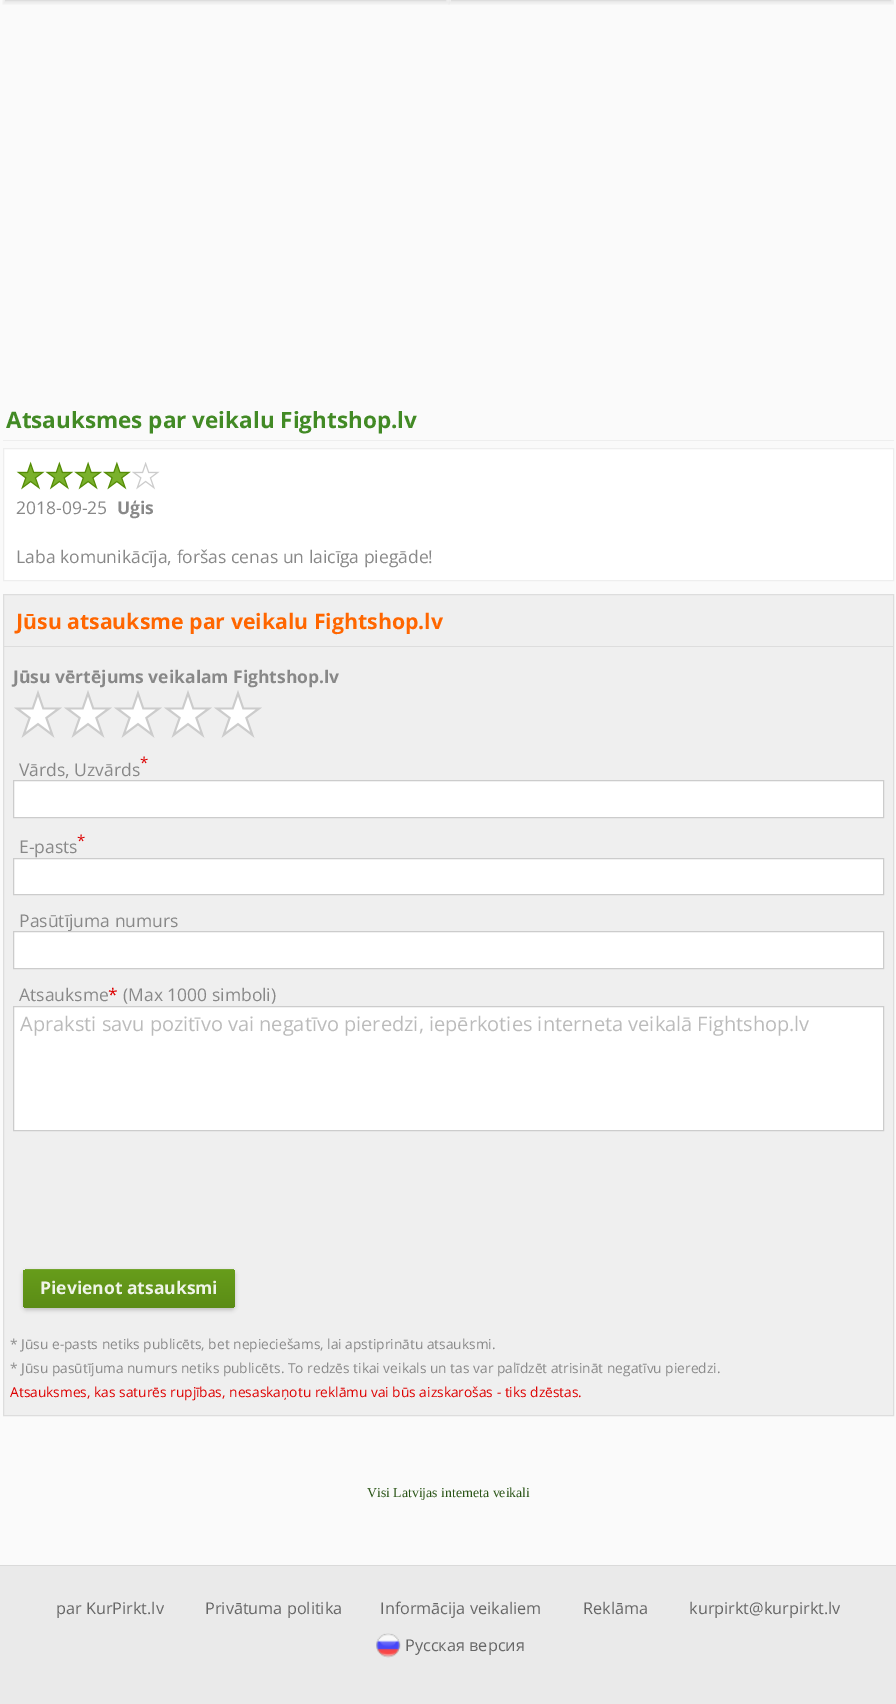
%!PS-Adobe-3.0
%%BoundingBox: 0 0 896 1704
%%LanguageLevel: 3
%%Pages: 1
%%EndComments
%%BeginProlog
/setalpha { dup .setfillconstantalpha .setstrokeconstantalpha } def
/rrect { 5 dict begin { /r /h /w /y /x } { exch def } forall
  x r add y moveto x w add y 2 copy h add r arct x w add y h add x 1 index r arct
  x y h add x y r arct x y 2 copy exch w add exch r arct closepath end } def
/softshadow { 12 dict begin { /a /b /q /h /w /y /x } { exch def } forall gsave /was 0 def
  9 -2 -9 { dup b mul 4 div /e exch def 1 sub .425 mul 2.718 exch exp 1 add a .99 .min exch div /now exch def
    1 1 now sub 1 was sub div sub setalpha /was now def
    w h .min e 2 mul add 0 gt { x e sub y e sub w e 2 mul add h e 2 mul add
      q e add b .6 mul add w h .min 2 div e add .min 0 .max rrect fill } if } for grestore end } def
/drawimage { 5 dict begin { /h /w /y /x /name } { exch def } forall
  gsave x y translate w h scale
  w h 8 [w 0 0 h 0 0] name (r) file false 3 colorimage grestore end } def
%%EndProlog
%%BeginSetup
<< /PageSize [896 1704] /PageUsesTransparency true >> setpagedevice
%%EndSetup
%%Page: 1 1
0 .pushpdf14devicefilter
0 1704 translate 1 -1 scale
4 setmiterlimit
0.98 setgray
0 0 896 1704 rectfill
0.784 setgray
3 -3 446 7 0 1 0.3 softshadow
0.867 setgray
5.5 -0.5 440 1 rectstroke
gsave
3 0 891 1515 rectclip
0.784 setgray
449 -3 445 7 0 1 0.3 softshadow
grestore
451.5 -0.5 439 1 rectstroke
0.933 setgray
3 440 891 1 rectfill
1 setgray
newpath 3.5 448.5 moveto 893.5 448.5 lineto 893.5 580.5 lineto 3.5 580.5 lineto closepath gsave fill grestore
0.933 setgray
stroke
(images/1.raw) 16 461 29 29 drawimage
(images/2.raw) 45 461 29 29 drawimage
(images/3.raw) 74 461 28 29 drawimage
(images/4.raw) 103 461 28 29 drawimage
(images/5.raw) 132 462 28 28 drawimage
0.937 setgray
newpath 3.5 594.5 moveto 893.5 594.5 lineto 893.5 1415.5 lineto 3.5 1415.5 lineto closepath gsave fill grestore
0.867 setgray
stroke
4 646 889 1 rectfill
(images/6.raw) 14 690 48 48 drawimage
(images/6.raw) 64 690 48 48 drawimage
(images/6.raw) 114 690 48 48 drawimage
(images/6.raw) 164 690 48 48 drawimage
(images/6.raw) 214 690 48 48 drawimage
1 setgray
newpath 13.5 780.5 moveto 883.5 780.5 lineto 883.5 817.5 lineto 13.5 817.5 lineto closepath gsave fill grestore
0.8 setgray
stroke
1 setgray
newpath 13.5 858.5 moveto 883.5 858.5 lineto 883.5 894.5 lineto 13.5 894.5 lineto closepath gsave fill grestore
0.8 setgray
stroke
1 setgray
newpath 13.5 1006.5 moveto 883.5 1006.5 lineto 883.5 1130.5 lineto 13.5 1130.5 lineto closepath gsave fill grestore
0.8 setgray
stroke
0 setgray
23 1271 212 39 4 2 0.2 softshadow
gsave
23 1269 212 39 4 rrect clip newpath
gsave newpath 23 1270 moveto 235 1270 lineto 235 1304 lineto 235 1306 233 1308 231 1308 curveto 27 1308 lineto 25 1308 23 1306 23 1304 curveto closepath clip newpath
<< /ShadingType 2 /ColorSpace /DeviceRGB /Coords [129 1270 129 1308] /Extend [true true] /Function << /FunctionType 2 /Domain [0 1] /C0 [0.404 0.616 0.106] /C1 [0.357 0.549 0.086] /N 1 >> >> shfill grestore
grestore
0.455 0.647 0.188 setrgbcolor
25 1269 209 1 rectfill
0.918 setgray
0 1566 896 138 rectfill
0.855 setgray
0 1565 896 1 rectfill
(images/7.raw) 376 1633 25 25 drawimage
/OpenSans-Bold [22.5 0 0 -22.5 0 0] selectfont
0.259 0.541 0.145 setrgbcolor
6 428 moveto (Atsauksmes par veikalu Fightshop.lv) show
/OpenSans-Regular [17.5 0 0 -17.5 0 0] selectfont
0.533 setgray
16 514 moveto (2018-09-25) show
/OpenSans-Bold [17.5 0 0 -17.5 0 0] selectfont
117 514 moveto (Uģis) show
/OpenSans-Regular [17.5 0 0 -17.5 0 0] selectfont
16 563 moveto (Laba komunikācīja, foršas cenas un laicīga piegāde!) show
/OpenSans-Bold [21.25 0 0 -21.25 0 0] selectfont
1 0.4 0 setrgbcolor
16 629 moveto (Jūsu atsauksme par veikalu Fightshop.lv) show
/OpenSans-Bold [17.5 0 0 -17.5 0 0] selectfont
0.533 setgray
13 683 moveto (Jūsu vērtējums veikalam Fightshop.lv) show
/OpenSans-Regular [15 0 0 -15 0 0] selectfont
0.867 0 0 setrgbcolor
140 768 moveto (*) show
/OpenSans-Regular [17.5 0 0 -17.5 0 0] selectfont
0.533 setgray
19 776 moveto (Vārds, Uzvārds) show
/OpenSans-Regular [15 0 0 -15 0 0] selectfont
0.867 0 0 setrgbcolor
77 846 moveto (*) show
/OpenSans-Regular [17.5 0 0 -17.5 0 0] selectfont
0.533 setgray
19 853 moveto (E-pasts) show
19 927 moveto (Pasūtījuma numurs) show
1 setgray
newpath 13.5 931.5 moveto 883.5 931.5 lineto 883.5 968.5 lineto 13.5 968.5 lineto closepath gsave fill grestore
0.8 setgray
stroke
0.533 setgray
19 1001 moveto (Atsauksme) show
0.867 0 0 setrgbcolor
108 1001 moveto (*) show
0.533 setgray
123 1001 moveto (\(Max 1000 simboli\)) show
/OpenSans-Regular [20 0 0 -20 0 0] selectfont
0.733 setgray
20 1031 moveto (Apraksti savu pozitīvo vai negatīvo pieredzi, iepērkoties interneta veikalā Fightshop.lv) show
/OpenSans-Bold [17.5 0 0 -17.5 0 0] selectfont
0.937 0.957 0.91 setrgbcolor
40 1294 moveto (Pievienot atsauksmi) show
/OpenSans-Regular [13.75 0 0 -13.75 0 0] selectfont
0.533 setgray
10 1349 moveto (* Jūsu e-pasts netiks publicēts, bet nepieciešams, lai apstiprinātu atsauksmi.) show
10 1373 moveto (* Jūsu pasūtījuma numurs netiks publicēts. To redzēs tikai veikals un tas var palīdzēt atrisināt negatīvu pieredzi.) show
0.867 0 0 setrgbcolor
10 1397 moveto (Atsauksmes, kas saturēs rupjības, nesaskaņotu reklāmu vai būs aizskarošas - tiks dzēstas.) show
/LiberationSerif-Regular [13.75 0 0 -13.75 0 0] selectfont
0.161 0.329 0.086 setrgbcolor
367 1497 moveto (Visi Latvijas interneta veikali) show
/OpenSans-Regular [16.25 0 0 -16.25 0 0] selectfont
0.4 setgray
56 1614 moveto (par KurPirkt.lv) show
205 1614 moveto (Privātuma politika) show
380 1614 moveto (Informācija veikaliem) show
583 1614 moveto (Reklāma) show
689 1614 moveto (kurpirkt@kurpirkt.lv) show
405 1651 moveto (Русская версия) show
.poppdf14devicefilter showpage
%%EOF
